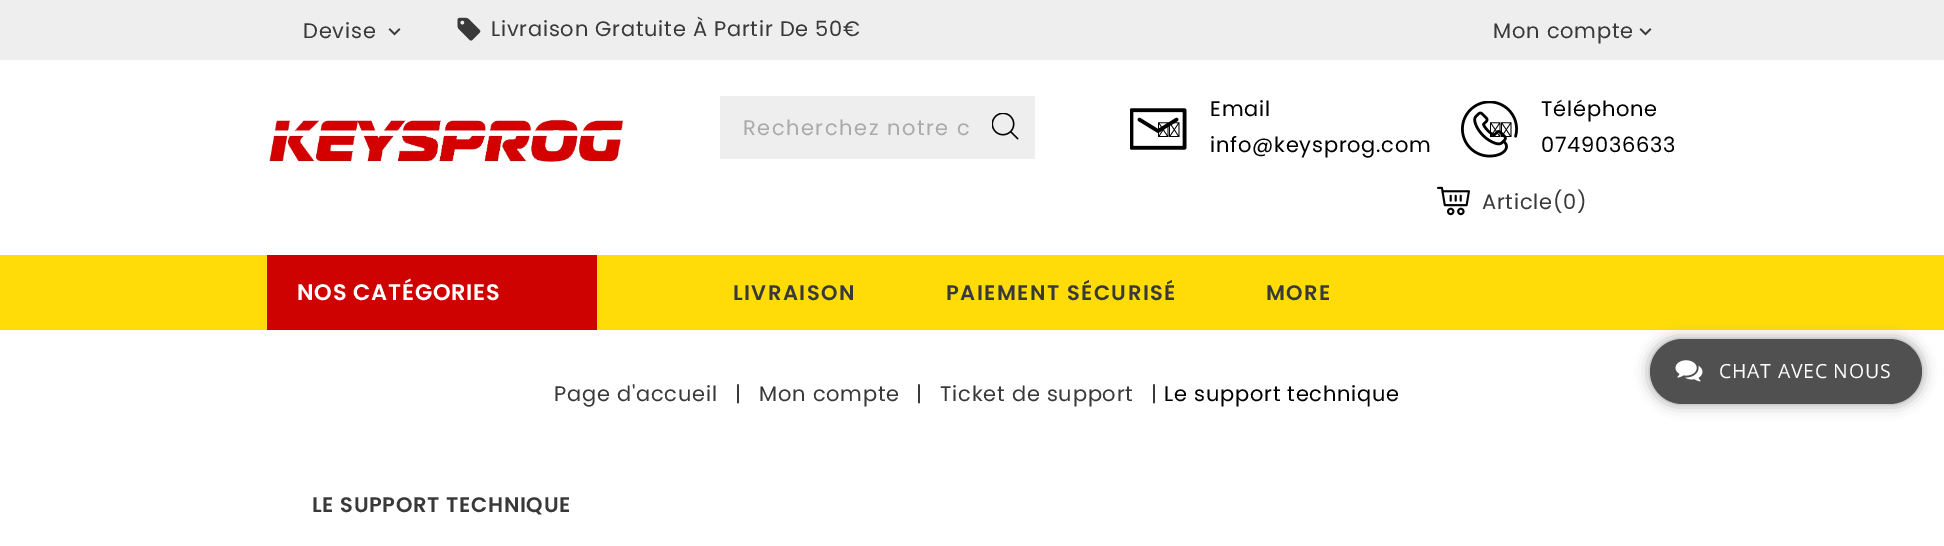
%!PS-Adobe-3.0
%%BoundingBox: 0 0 1944 546
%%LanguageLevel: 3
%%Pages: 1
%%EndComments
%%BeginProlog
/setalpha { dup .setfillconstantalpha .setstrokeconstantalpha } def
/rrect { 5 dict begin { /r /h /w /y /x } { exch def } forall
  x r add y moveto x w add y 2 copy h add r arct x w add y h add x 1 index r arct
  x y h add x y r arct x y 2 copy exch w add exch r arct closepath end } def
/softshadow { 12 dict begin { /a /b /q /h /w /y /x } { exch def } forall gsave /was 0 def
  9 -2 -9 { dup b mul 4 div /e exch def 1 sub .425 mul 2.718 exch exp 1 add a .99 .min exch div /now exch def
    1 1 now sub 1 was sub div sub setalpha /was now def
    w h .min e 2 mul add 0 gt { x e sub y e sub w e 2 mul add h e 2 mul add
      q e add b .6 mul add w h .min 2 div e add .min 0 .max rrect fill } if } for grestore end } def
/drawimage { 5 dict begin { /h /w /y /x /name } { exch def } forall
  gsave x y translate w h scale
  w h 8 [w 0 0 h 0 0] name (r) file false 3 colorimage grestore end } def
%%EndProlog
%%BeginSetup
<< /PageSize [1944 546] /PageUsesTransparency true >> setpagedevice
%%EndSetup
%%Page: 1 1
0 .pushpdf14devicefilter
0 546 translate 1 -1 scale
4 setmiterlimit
1 setgray
0 0 1944 546 rectfill
0.933 setgray
0 0 1944 60 rectfill
(images/1.raw) 388 28 13 8 drawimage
(images/2.raw) 457 17 24 24 drawimage
(images/1.raw) 1639 28 13 8 drawimage
(images/3.raw) 268 117 356 48 drawimage
720 96 315 63 rectfill
(images/4.raw) 992 113 27 27 drawimage
(images/5.raw) 1130 108 57 42 drawimage
(images/6.raw) 1461 101 57 57 drawimage
(images/7.raw) 1437 186 33 30 drawimage
1 0.863 0.031 setrgbcolor
0 255 1944 75 rectfill
0.812 0.008 0.008 setrgbcolor
267 255 330 75 rectfill
0.6 setgray
1650 339 272 65 32.5 7 1 softshadow
0.314 setgray
1650 339 272 65 32.5 rrect fill
(images/8.raw) 1675 360 28 22 drawimage
/Poppins-Regular [21 0 0 -21 0 0] selectfont
0.224 setgray
303 38 moveto 0.75 0 (Devise) ashow
491 36 moveto 0.75 0 (Livraison Gratuite À Partir De 50€) ashow
1493 38 moveto 0.75 0 (Mon compte) ashow
0.667 setgray
743 135 moveto 1.5 0 (Recherchez notre c) ashow
0 setgray
1158 137 moveto 0.75 0 (;) ashow
1210 116 moveto 0.75 0 (Email) ashow
1210 152 moveto 0.75 0 (info@keysprog.com) ashow
1490 137 moveto 0.75 0 (;) ashow
1541 116 moveto 0.75 0 (Téléphone) ashow
1541 152 moveto 0.75 0 (0749036633) ashow
0.224 setgray
1482 209 moveto 0.75 0 (Article\(0\)) ashow
/Poppins-SemiBold [22.5 0 0 -22.5 0 0] selectfont
1 setgray
297 300 moveto 0.75 0 (NOS CATÉGORIES) ashow
/Poppins-SemiBold [21 0 0 -21 0 0] selectfont
0.224 setgray
733 300 moveto 1.5 0 (LIVRAISON) ashow
946 300 moveto 1.5 0 (PAIEMENT SÉCURISÉ) ashow
1266 300 moveto 1.5 0 (MORE) ashow
/Poppins-Regular [21 0 0 -21 0 0] selectfont
554 401 moveto 0.75 0 (Page d'accueil) ashow
735 401 moveto 0.75 0 (|) ashow
759 401 moveto 0.75 0 (Mon compte) ashow
916 401 moveto 0.75 0 (|) ashow
940 401 moveto 0.75 0 (Ticket de support) ashow
1151 401 moveto 0.75 0 (|) ashow
0 setgray
1164 401 moveto 0.75 0 (Le support technique) ashow
/Poppins-SemiBold [21 0 0 -21 0 0] selectfont
0.224 setgray
312 512 moveto 0.75 0 (LE SUPPORT TECHNIQUE) ashow
/OpenSans-Regular [19.5 0 0 -19.5 0 0] selectfont
1 setgray
1719 378 moveto 0.75 0 (CHAT AVEC NOUS) ashow
.poppdf14devicefilter showpage
%%EOF
